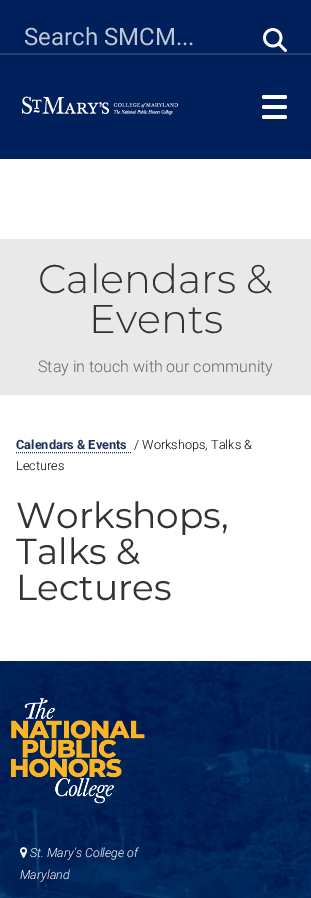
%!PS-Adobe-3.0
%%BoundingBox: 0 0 311 898
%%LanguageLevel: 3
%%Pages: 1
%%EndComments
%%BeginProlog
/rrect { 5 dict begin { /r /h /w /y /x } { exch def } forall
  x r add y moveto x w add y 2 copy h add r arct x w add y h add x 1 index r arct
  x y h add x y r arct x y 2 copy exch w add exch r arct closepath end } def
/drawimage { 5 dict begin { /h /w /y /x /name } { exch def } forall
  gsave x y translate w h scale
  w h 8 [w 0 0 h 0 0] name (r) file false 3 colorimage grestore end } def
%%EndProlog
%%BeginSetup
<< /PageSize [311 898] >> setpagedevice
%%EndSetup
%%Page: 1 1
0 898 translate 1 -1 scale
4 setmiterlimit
1 setgray
0 0 311 898 rectfill
0 0.125 0.361 setrgbcolor
0 0 311 159 rectfill
0.149 0.255 0.455 setrgbcolor
0 53 311 2 rectfill
(images/1.raw) 263 28 24 24 drawimage
(images/2.raw) 22 96 157 20 drawimage
1 setgray
262 95 25 4 2 rrect fill
262 105 25 4 2 rrect fill
262 115 25 4 2 rrect fill
0.914 setgray
0 239 311 156 rectfill
0.118 0.192 0.349 setrgbcolor
[1 1] 0 setdash
newpath 16 452.5 moveto 131 452.5 lineto stroke
(images/3.raw) 0 661 311 237 drawimage
(images/4.raw) 11 698 134 106 drawimage
(images/5.raw) 20 847 8 11 drawimage
/Roboto-Regular [24 0 0 -24 0 0] selectfont
0.749 0.78 0.839 setrgbcolor
24 45 moveto (Search SMCM...) show
/Montserrat-Light [40 0 0 -40 0 0] selectfont
0.2 setgray
38 293 moveto (Calendars &) show
89 333 moveto (Events) show
/Roboto-Light [16 0 0 -16 0 0] selectfont
0.4 setgray
38 372 moveto (Stay in touch with our community) show
/Roboto-Bold [12.75 0 0 -12.75 0 0] selectfont
0.118 0.192 0.349 setrgbcolor
16 449 moveto (Calendars & Events) show
/Roboto-Light [12.75 0 0 -12.75 0 0] selectfont
0 setgray
134 449 moveto (/ Workshops, Talks &) show
16 470 moveto (Lectures) show
/Montserrat-Regular [36 0 0 -36 0 0] selectfont
0.2 setgray
16 528 moveto (Workshops,) show
16 564 moveto (Talks &) show
16 600 moveto (Lectures) show
/Roboto-LightItalic [12.5 0 0 -12.5 0 0] selectfont
1 setgray
30 857 moveto (St. Mary's College of) show
20 879 moveto (Maryland) show
showpage
%%EOF
